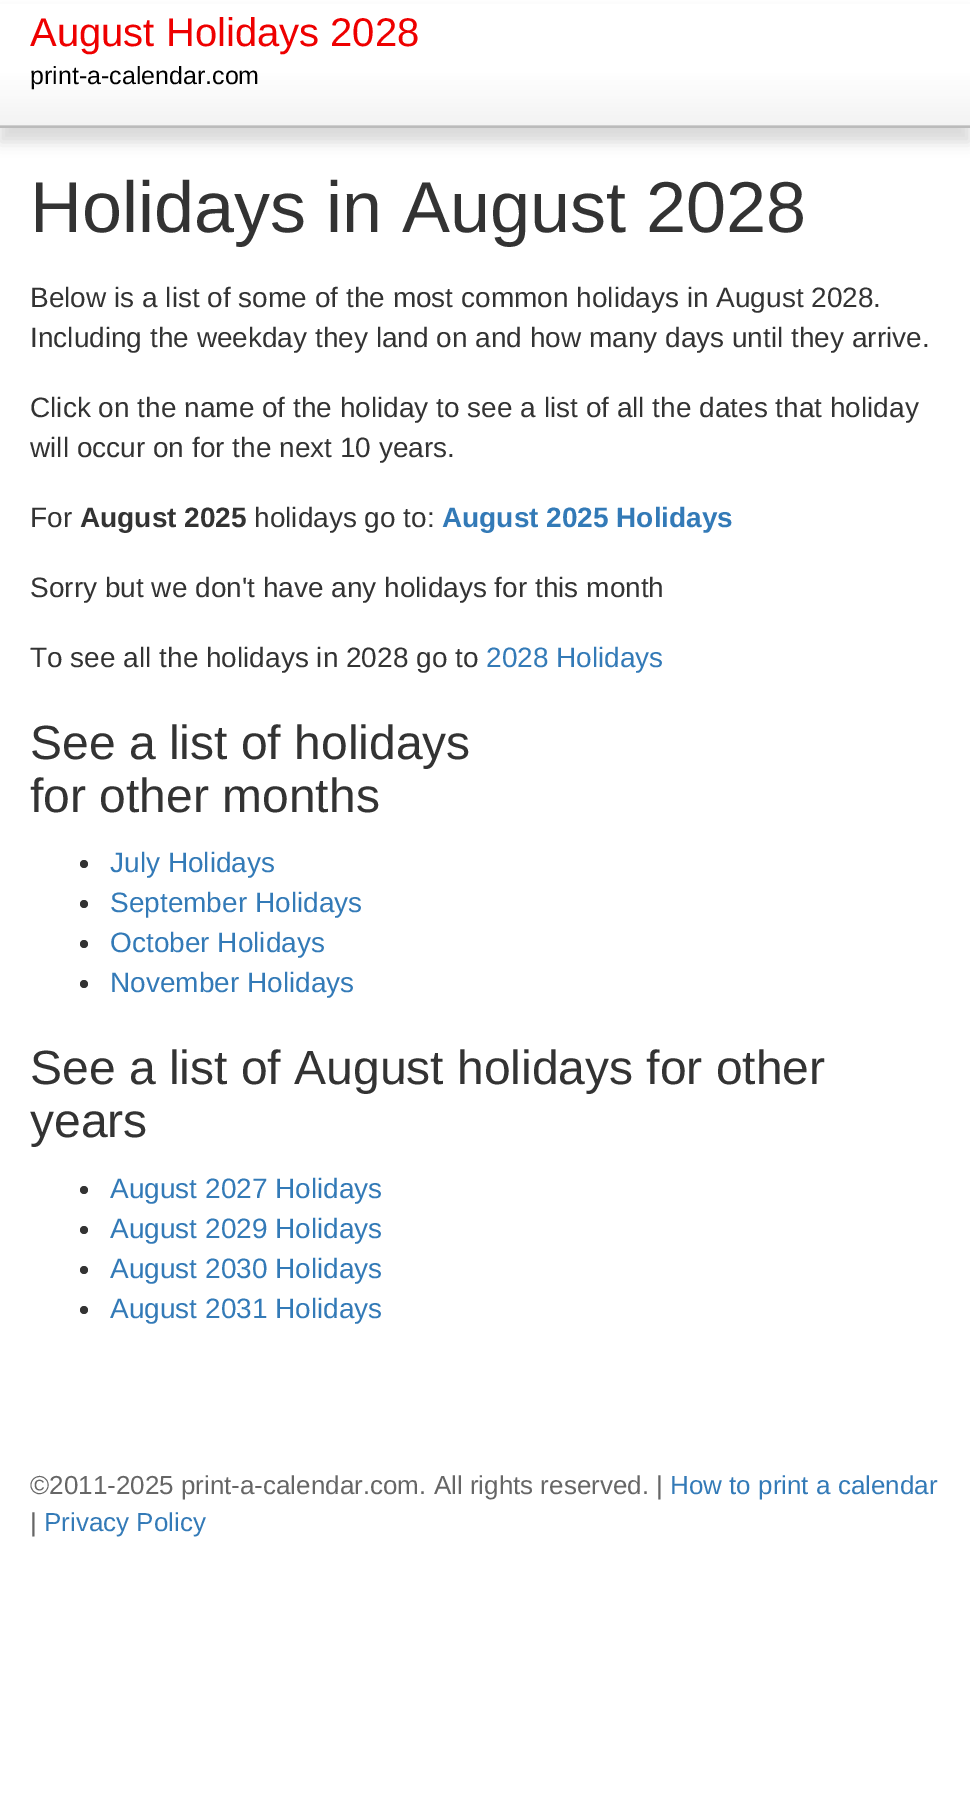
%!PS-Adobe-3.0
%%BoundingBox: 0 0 970 1811
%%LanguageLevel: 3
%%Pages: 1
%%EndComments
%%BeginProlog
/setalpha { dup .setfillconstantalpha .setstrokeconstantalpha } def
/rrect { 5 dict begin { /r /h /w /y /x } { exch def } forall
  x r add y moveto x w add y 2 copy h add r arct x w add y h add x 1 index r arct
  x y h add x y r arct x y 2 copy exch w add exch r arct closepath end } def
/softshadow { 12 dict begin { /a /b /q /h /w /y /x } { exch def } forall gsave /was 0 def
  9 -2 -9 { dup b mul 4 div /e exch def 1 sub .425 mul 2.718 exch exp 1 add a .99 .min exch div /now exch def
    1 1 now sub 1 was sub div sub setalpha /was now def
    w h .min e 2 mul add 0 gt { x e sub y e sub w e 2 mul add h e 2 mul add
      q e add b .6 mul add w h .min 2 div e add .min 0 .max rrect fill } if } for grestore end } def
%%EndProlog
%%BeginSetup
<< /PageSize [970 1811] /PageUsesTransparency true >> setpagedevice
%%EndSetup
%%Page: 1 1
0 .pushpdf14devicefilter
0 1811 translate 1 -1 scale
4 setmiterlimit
1 setgray
0 0 970 1811 rectfill
0 setgray
0 14 970 128 0 7 0.15 softshadow
gsave newpath 0 4 moveto 970 4 lineto 970 126 lineto 0 126 lineto closepath clip newpath
<< /ShadingType 2 /ColorSpace /DeviceRGB /Coords [485 0 485 126] /Extend [true true] /Function << /FunctionType 3 /Domain [0 1] /Functions [<< /FunctionType 2 /Domain [0 1] /C0 [1 1 1] /C1 [1 1 1] /N 1 >> << /FunctionType 2 /Domain [0 1] /C0 [1 1 1] /C1 [1 1 1] /N 1 >> << /FunctionType 2 /Domain [0 1] /C0 [1 1 1] /C1 [0.953 0.953 0.953] /N 1 >> << /FunctionType 2 /Domain [0 1] /C0 [0.953 0.953 0.953] /C1 [0.808 0.808 0.808] /N 1 >>] /Bounds [0.02 0.57 0.99] /Encode [0 1 0 1 0 1 0 1] >> >> shfill grestore
0.733 setgray
0 126 970 2 rectfill
0.2 setgray
newpath 84 864 4 0 360 arc closepath fill
newpath 84 904 4 0 360 arc closepath fill
newpath 84 944 4 0 360 arc closepath fill
newpath 84 984 4 0 360 arc closepath fill
newpath 84 1190 4 0 360 arc closepath fill
newpath 84 1230 4 0 360 arc closepath fill
newpath 84 1270 4 0 360 arc closepath fill
newpath 84 1310 4 0 360 arc closepath fill
/LiberationSans-Regular [40 0 0 -40 0 0] selectfont
0.933 0 0 setrgbcolor
30 46 moveto (August Holidays 2028) show
/LiberationSans-Regular [25 0 0 -25 0 0] selectfont
0 setgray
30 84 moveto (print-a-calendar.com) show
/LiberationSans-Regular [72 0 0 -72 0 0] selectfont
0.2 setgray
30 232 moveto (Holidays in August 2028) show
/LiberationSans-Regular [28 0 0 -28 0 0] selectfont
30 307 moveto (Below is a list of some of the most common holidays in August 2028.) show
30 347 moveto (Including the weekday they land on and how many days until they arrive.) show
30 417 moveto (Click on the name of the holiday to see a list of all the dates that holiday) show
30 457 moveto (will occur on for the next 10 years.) show
30 527 moveto (For) show
/LiberationSans-Bold [28 0 0 -28 0 0] selectfont
80 527 moveto (August 2025) show
/LiberationSans-Regular [28 0 0 -28 0 0] selectfont
254 527 moveto (holidays go to:) show
/LiberationSans-Bold [28 0 0 -28 0 0] selectfont
0.2 0.478 0.718 setrgbcolor
442 527 moveto (August 2025 Holidays) show
/LiberationSans-Regular [28 0 0 -28 0 0] selectfont
0.2 setgray
30 597 moveto (Sorry but we don't have any holidays for this month) show
30 667 moveto (To see all the holidays in 2028 go to) show
0.2 0.478 0.718 setrgbcolor
486 667 moveto (2028 Holidays) show
/LiberationSans-Regular [48 0 0 -48 0 0] selectfont
0.2 setgray
30 759 moveto (See a list of holidays) show
30 812 moveto (for other months) show
/LiberationSans-Regular [28 0 0 -28 0 0] selectfont
0.2 0.478 0.718 setrgbcolor
110 872 moveto (July Holidays) show
110 912 moveto (September Holidays) show
110 952 moveto (October Holidays) show
110 992 moveto (November Holidays) show
/LiberationSans-Regular [48 0 0 -48 0 0] selectfont
0.2 setgray
30 1084 moveto (See a list of August holidays for other) show
30 1137 moveto (years) show
/LiberationSans-Regular [28 0 0 -28 0 0] selectfont
0.2 0.478 0.718 setrgbcolor
110 1198 moveto (August 2027 Holidays) show
110 1238 moveto (August 2029 Holidays) show
110 1278 moveto (August 2030 Holidays) show
110 1318 moveto (August 2031 Holidays) show
/LiberationSans-Regular [26 0 0 -26 0 0] selectfont
0.4 setgray
30 1494 moveto (©2011-2025 print-a-calendar.com. All rights reserved. |) show
0.2 0.478 0.718 setrgbcolor
670 1494 moveto (How to print a calendar) show
0.4 setgray
30 1531 moveto (|) show
0.2 0.478 0.718 setrgbcolor
44 1531 moveto (Privacy Policy) show
.poppdf14devicefilter showpage
%%EOF
